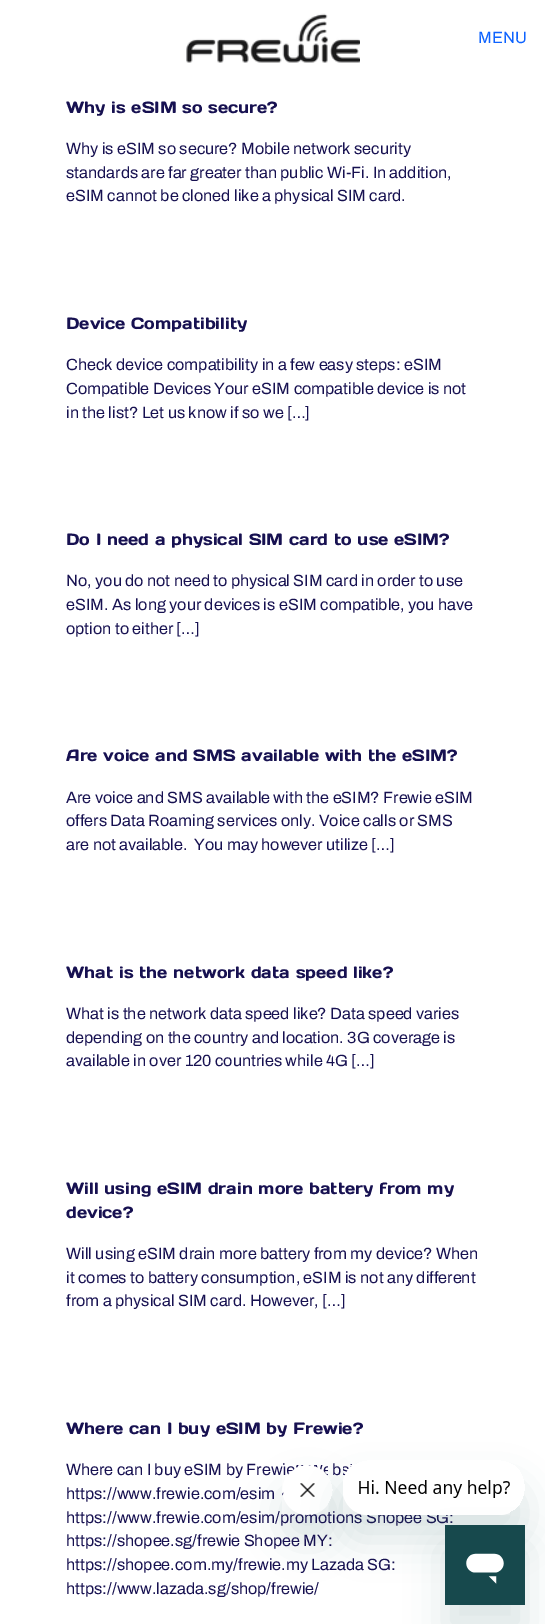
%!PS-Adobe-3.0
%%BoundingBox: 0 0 545 1624
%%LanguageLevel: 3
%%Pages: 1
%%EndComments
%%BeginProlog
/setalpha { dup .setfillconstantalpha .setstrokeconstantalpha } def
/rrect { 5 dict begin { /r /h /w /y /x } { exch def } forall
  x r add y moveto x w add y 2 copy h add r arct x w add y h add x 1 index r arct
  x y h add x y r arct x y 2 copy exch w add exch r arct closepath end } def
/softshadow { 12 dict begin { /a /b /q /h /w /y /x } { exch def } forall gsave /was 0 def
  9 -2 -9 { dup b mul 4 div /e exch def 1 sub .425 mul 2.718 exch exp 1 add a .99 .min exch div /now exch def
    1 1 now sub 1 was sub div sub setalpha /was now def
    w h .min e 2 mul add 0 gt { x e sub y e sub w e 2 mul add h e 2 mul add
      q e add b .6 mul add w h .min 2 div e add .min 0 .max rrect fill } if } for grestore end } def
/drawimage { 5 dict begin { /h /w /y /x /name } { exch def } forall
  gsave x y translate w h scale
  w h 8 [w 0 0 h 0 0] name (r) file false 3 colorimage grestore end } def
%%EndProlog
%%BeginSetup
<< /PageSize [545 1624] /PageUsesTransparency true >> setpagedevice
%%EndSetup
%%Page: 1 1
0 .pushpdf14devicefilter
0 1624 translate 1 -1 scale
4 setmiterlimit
1 setgray
0 0 545 1624 rectfill
(images/1.raw) 186 13 174 50 drawimage
gsave
newpath 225 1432 moveto 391 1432 lineto 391 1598 lineto 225 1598 lineto closepath 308 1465 moveto 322 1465 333 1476 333 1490 curveto 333 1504 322 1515 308 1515 curveto 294 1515 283 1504 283 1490 curveto 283 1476 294 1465 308 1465 curveto closepath eoclip newpath
0.09 0.286 0.302 setrgbcolor
283 1490 50 50 25 19 0.15 softshadow
grestore
/Archivo-Regular [16.25 0 0 -16.25 0 0] selectfont
0.055 0.388 1 setrgbcolor
478 43 moveto (MENU) show
/DaysOne-Regular [16.25 0 0 -16.25 0 0] selectfont
0.09 0.067 0.318 setrgbcolor
66 113 moveto (Why is eSIM so secure?) show
/Archivo-Regular [16.25 0 0 -16.25 0 0] selectfont
66 154 moveto (Why is eSIM so secure? Mobile network security) show
66 178 moveto (standards are far greater than public Wi-Fi. In addition,) show
66 201 moveto (eSIM cannot be cloned like a physical SIM card.) show
/DaysOne-Regular [16.25 0 0 -16.25 0 0] selectfont
66 329 moveto (Device Compatibility) show
/Archivo-Regular [16.25 0 0 -16.25 0 0] selectfont
66 370 moveto (Check device compatibility in a few easy steps: eSIM) show
66 394 moveto (Compatible Devices Your eSIM compatible device is not) show
66 418 moveto (in the list? Let us know if so we […]) show
/DaysOne-Regular [16.25 0 0 -16.25 0 0] selectfont
66 545 moveto (Do I need a physical SIM card to use eSIM?) show
/Archivo-Regular [16.25 0 0 -16.25 0 0] selectfont
66 586 moveto (No, you do not need to physical SIM card in order to use) show
66 610 moveto (eSIM. As long your devices is eSIM compatible, you have) show
66 634 moveto (option to either […]) show
/DaysOne-Regular [16.25 0 0 -16.25 0 0] selectfont
66 761 moveto (Are voice and SMS available with the eSIM?) show
/Archivo-Regular [16.25 0 0 -16.25 0 0] selectfont
66 803 moveto (Are voice and SMS available with the eSIM? Frewie eSIM) show
66 826 moveto (offers Data Roaming services only. Voice calls or SMS) show
66 850 moveto (are not available.  You may however utilize […]) show
/DaysOne-Regular [16.25 0 0 -16.25 0 0] selectfont
66 978 moveto (What is the network data speed like?) show
/Archivo-Regular [16.25 0 0 -16.25 0 0] selectfont
66 1019 moveto (What is the network data speed like? Data speed varies) show
66 1043 moveto (depending on the country and location. 3G coverage is) show
66 1066 moveto (available in over 120 countries while 4G […]) show
/DaysOne-Regular [16.25 0 0 -16.25 0 0] selectfont
66 1194 moveto (Will using eSIM drain more battery from my) show
66 1218 moveto (device?) show
/Archivo-Regular [16.25 0 0 -16.25 0 0] selectfont
66 1259 moveto (Will using eSIM drain more battery from my device? When) show
66 1283 moveto (it comes to battery consumption, eSIM is not any different) show
66 1306 moveto (from a physical SIM card. However, […]) show
/DaysOne-Regular [16.25 0 0 -16.25 0 0] selectfont
66 1434 moveto (Where can I buy eSIM by Frewie?) show
/Archivo-Regular [16.25 0 0 -16.25 0 0] selectfont
66 1475 moveto (Where can I buy eSIM by Frewi) show
332 1475 moveto (b) show
66 1499 moveto (https://www.frewie.com/esim) show
66 1523 moveto (https://www.frewie.com/esim/promotions Shopee SG:) show
66 1546 moveto (https://shopee.sg/frewie Shopee MY:) show
66 1570 moveto (https://shopee.com.my/frewie.my Lazada SG:) show
66 1594 moveto (https://www.lazada.sg/shop/frewie/) show
(images/3.raw) 282 1465 46 50 drawimage
gsave
newpath 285 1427 moveto 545 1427 lineto 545 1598 lineto 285 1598 lineto closepath 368 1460 moveto 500 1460 lineto 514 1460 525 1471 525 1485 curveto 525 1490 lineto 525 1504 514 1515 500 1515 curveto 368 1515 lineto 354 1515 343 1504 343 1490 curveto 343 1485 lineto 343 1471 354 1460 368 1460 curveto closepath eoclip newpath
0.09 0.286 0.302 setrgbcolor
343 1485 182 55 25 19 0.15 softshadow
grestore
(images/2.raw) 343 1464 167 51 drawimage
0.09 0.286 0.302 setrgbcolor
445 1550 80 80 0 19 0.15 softshadow
(images/4.raw) 445 1525 80 80 drawimage
.poppdf14devicefilter showpage
%%EOF
